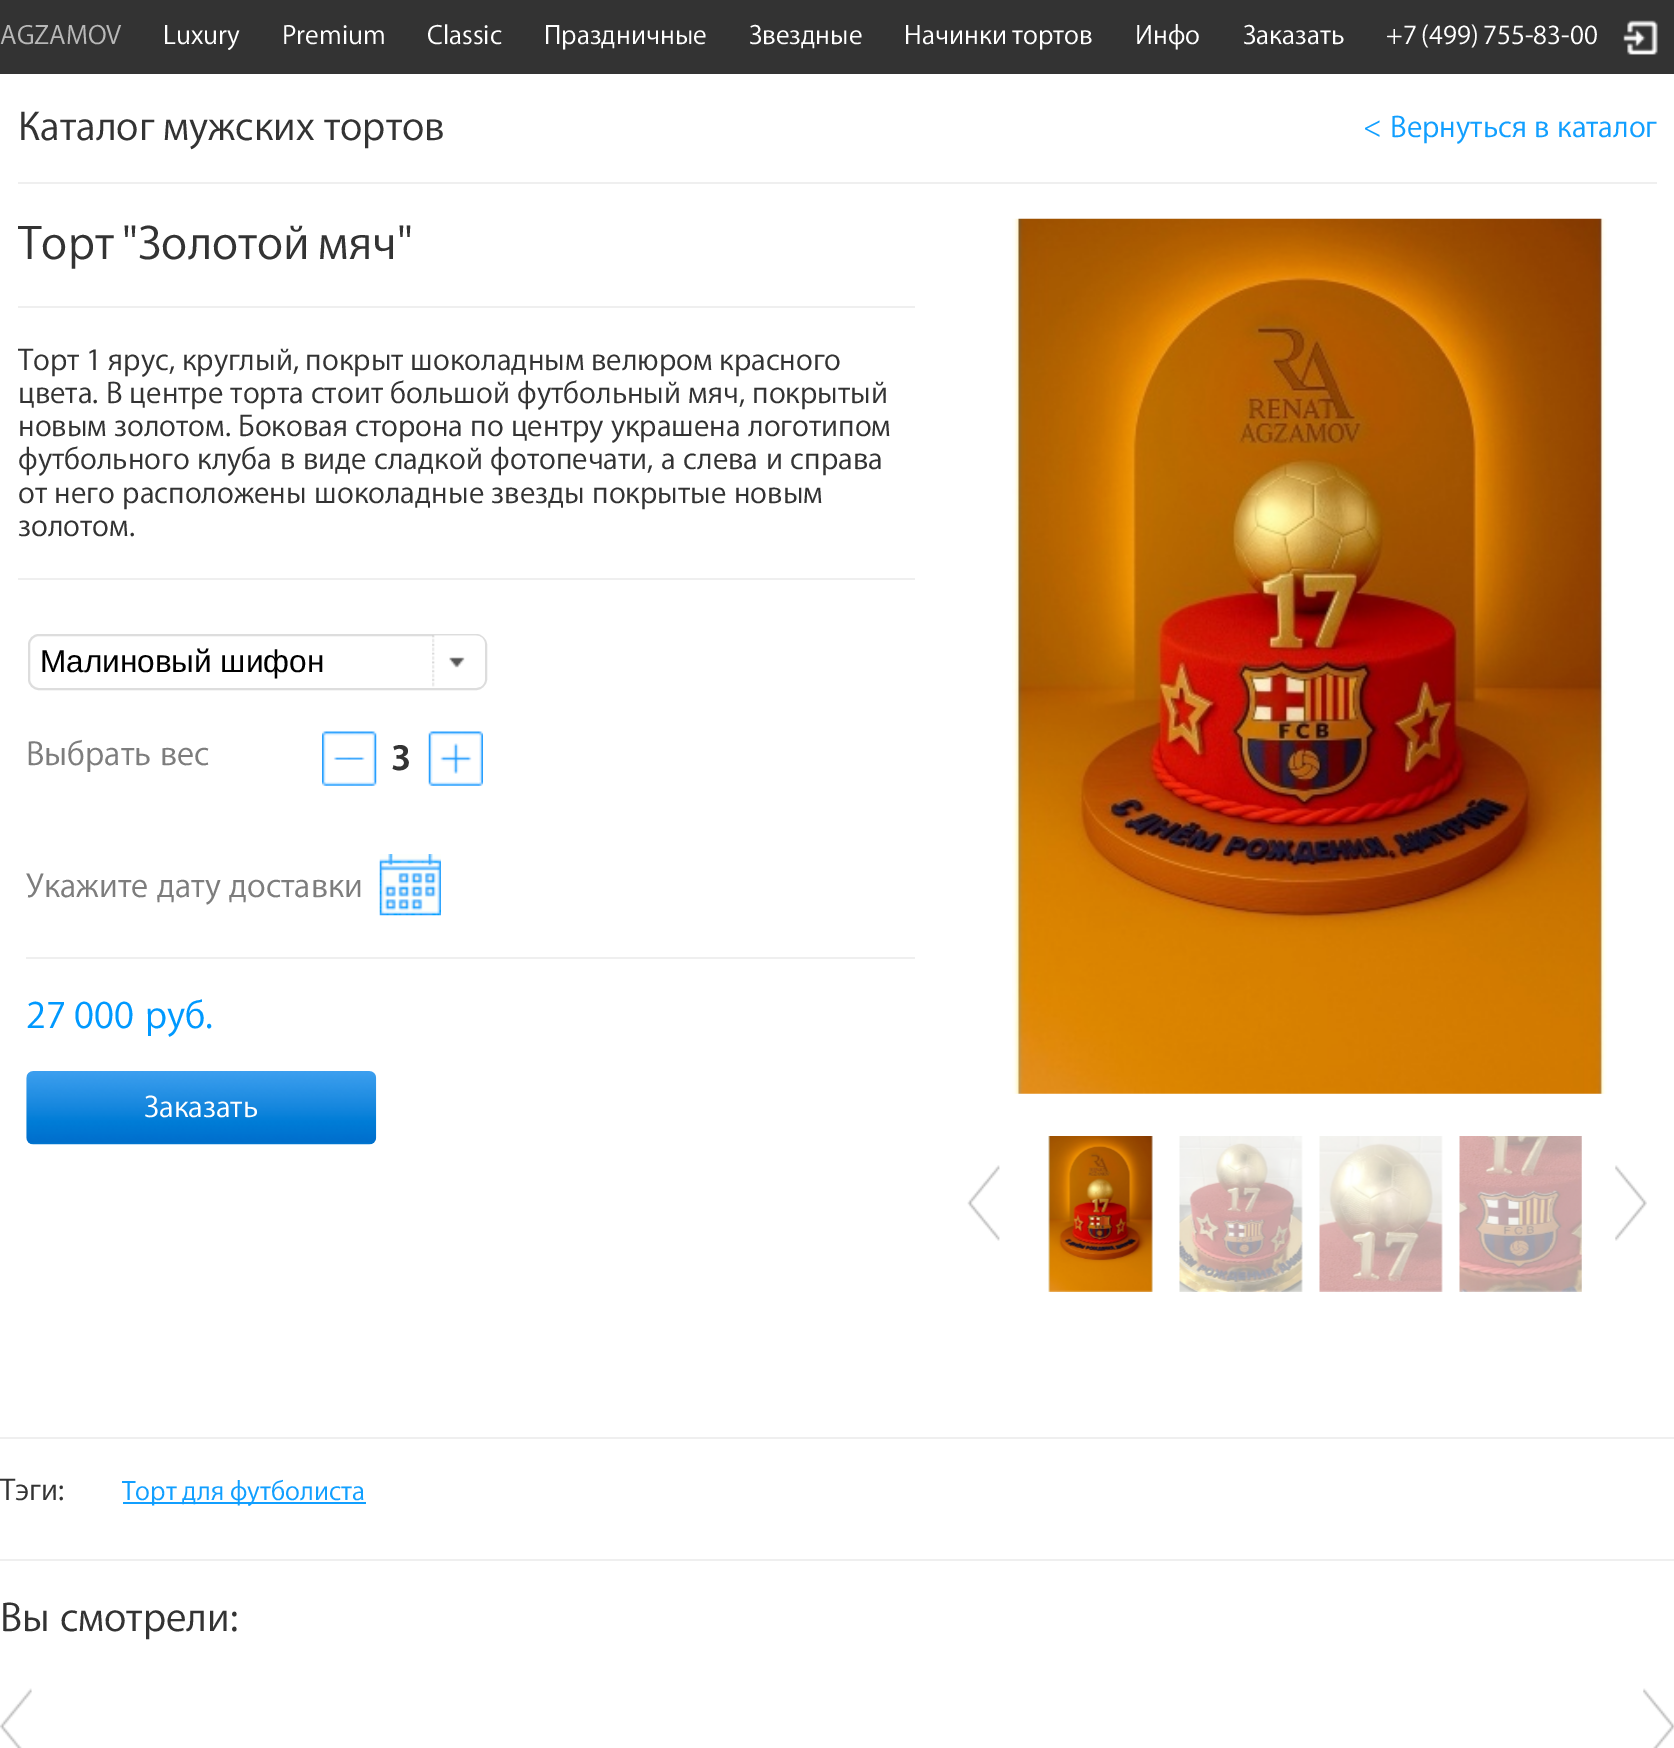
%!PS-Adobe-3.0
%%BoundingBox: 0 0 1674 1748
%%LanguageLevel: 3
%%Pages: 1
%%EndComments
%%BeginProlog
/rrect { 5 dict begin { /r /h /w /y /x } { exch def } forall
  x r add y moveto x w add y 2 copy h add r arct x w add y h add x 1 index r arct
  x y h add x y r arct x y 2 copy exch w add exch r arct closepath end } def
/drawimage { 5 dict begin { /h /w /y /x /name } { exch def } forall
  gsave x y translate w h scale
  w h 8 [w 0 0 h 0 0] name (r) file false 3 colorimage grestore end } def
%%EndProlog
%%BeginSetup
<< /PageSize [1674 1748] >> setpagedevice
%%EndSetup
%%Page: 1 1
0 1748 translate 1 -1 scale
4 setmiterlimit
1 setgray
0 0 1674 1748 rectfill
0.2 setgray
0 0 1674 74 rectfill
(images/1.raw) 1623 20 35 35 drawimage
0.937 setgray
18 182 1639 2 rectfill
18 306 897 2 rectfill
18 578 897 2 rectfill
0.867 setgray
2 setlinewidth
29 635 457 54 10 rrect stroke
(images/2.raw) 432 635 53 52 drawimage
(images/3.raw) 322 731 55 55 drawimage
(images/4.raw) 428 731 55 55 drawimage
(images/5.raw) 379 854 62 62 drawimage
0.937 setgray
26 957 889 2 rectfill
(images/6.raw) 26 1071 351 74 drawimage
(images/7.raw) 1012 218 595 876 drawimage
(images/8.raw) 967 1165 33 76 drawimage
(images/9.raw) 1048 1136 105 156 drawimage
(images/10.raw) 1179 1136 124 156 drawimage
(images/11.raw) 1319 1136 124 156 drawimage
(images/12.raw) 1459 1136 123 156 drawimage
(images/13.raw) 1615 1165 32 76 drawimage
0 1437 1674 2 rectfill
0.067 0.624 1 setrgbcolor
123 1502 243 2 rectfill
0.937 setgray
0 1559 1674 2 rectfill
(images/14.raw) 0 1688 32 60 drawimage
(images/15.raw) 1643 1688 31 60 drawimage
/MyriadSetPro-Regular [28 0 0 -28 0 0] selectfont
0.722 setgray
0 44 moveto (AGZAMOV) show
1 setgray
163 44 moveto (Luxury) show
282 44 moveto (Premium) show
427 44 moveto (Classic) show
544 44 moveto (Праздничные) show
749 44 moveto (Звездные) show
904 44 moveto -2 0 32 (Начинки тортов) widthshow
1135 44 moveto (Инфо) show
1243 44 moveto (Заказать) show
1386 44 moveto -2 0 32 (+7 \(499\) 755-83-00) widthshow
/MyriadSetPro-Regular [42 0 0 -42 0 0] selectfont
0.2 setgray
18 140 moveto -1 0 32 (Каталог мужских тортов) widthshow
/MyriadSetPro-Regular [31.5 0 0 -31.5 0 0] selectfont
0.067 0.624 1 setrgbcolor
1363 137 moveto 1 0 32 (< Вернуться) widthshow
1534 137 moveto (в каталог) show
/MyriadSetPro-Regular [49 0 0 -49 0 0] selectfont
0.2 setgray
18 259 moveto -3 0 32 (Торт "Золотой мяч") widthshow
/MyriadSetPro-Regular [31.5 0 0 -31.5 0 0] selectfont
18 370 moveto -1 0 32 (Торт 1 ярус, круглый, покрыт шоколадным велюром красного) widthshow
18 403 moveto -0.5 0 32 (цвета. В центре торта стоит большой футбольный мяч, покрытый) widthshow
18 436 moveto -0.5 0 32 (новым золотом. Боковая сторона по центру украшена логотипом) widthshow
18 469 moveto (футбольного клуба в виде сладкой фотопечати, а слева и справа) show
18 503 moveto -0.25 0 32 (от него расположены шоколадные звезды покрытые новым) widthshow
18 536 moveto (золотом.) show
/LiberationSans-Regular [31.5 0 0 -31.5 0 0] selectfont
0 setgray
40 672 moveto (Малиновый шифон) show
/MyriadSetPro-Regular [35 0 0 -35 0 0] selectfont
0.49 setgray
26 765 moveto (Выбрать вес) show
/MyriadSetPro-Bold [38 0 0 -38 0 0] selectfont
0.2 setgray
391 770 moveto (3) show
/MyriadSetPro-Regular [35 0 0 -35 0 0] selectfont
0.49 setgray
26 897 moveto (Укажите дату доставки) show
/MyriadSetPro-Regular [40 0 0 -40 0 0] selectfont
0 0.6 1 setrgbcolor
26 1028 moveto -1 0 32 (27 000) widthshow
145 1028 moveto (руб.) show
/MyriadSetPro-Regular [31.5 0 0 -31.5 0 0] selectfont
1 setgray
144 1117 moveto (Заказать) show
0.2 setgray
0 1500 moveto (Тэги:) show
/MyriadSetPro-Regular [28 0 0 -28 0 0] selectfont
0.067 0.624 1 setrgbcolor
122 1500 moveto -1 0 32 (Торт для футболиста) widthshow
/MyriadSetPro-Regular [42 0 0 -42 0 0] selectfont
0.2 setgray
0 1631 moveto (Вы смотрели:) show
showpage
%%EOF
